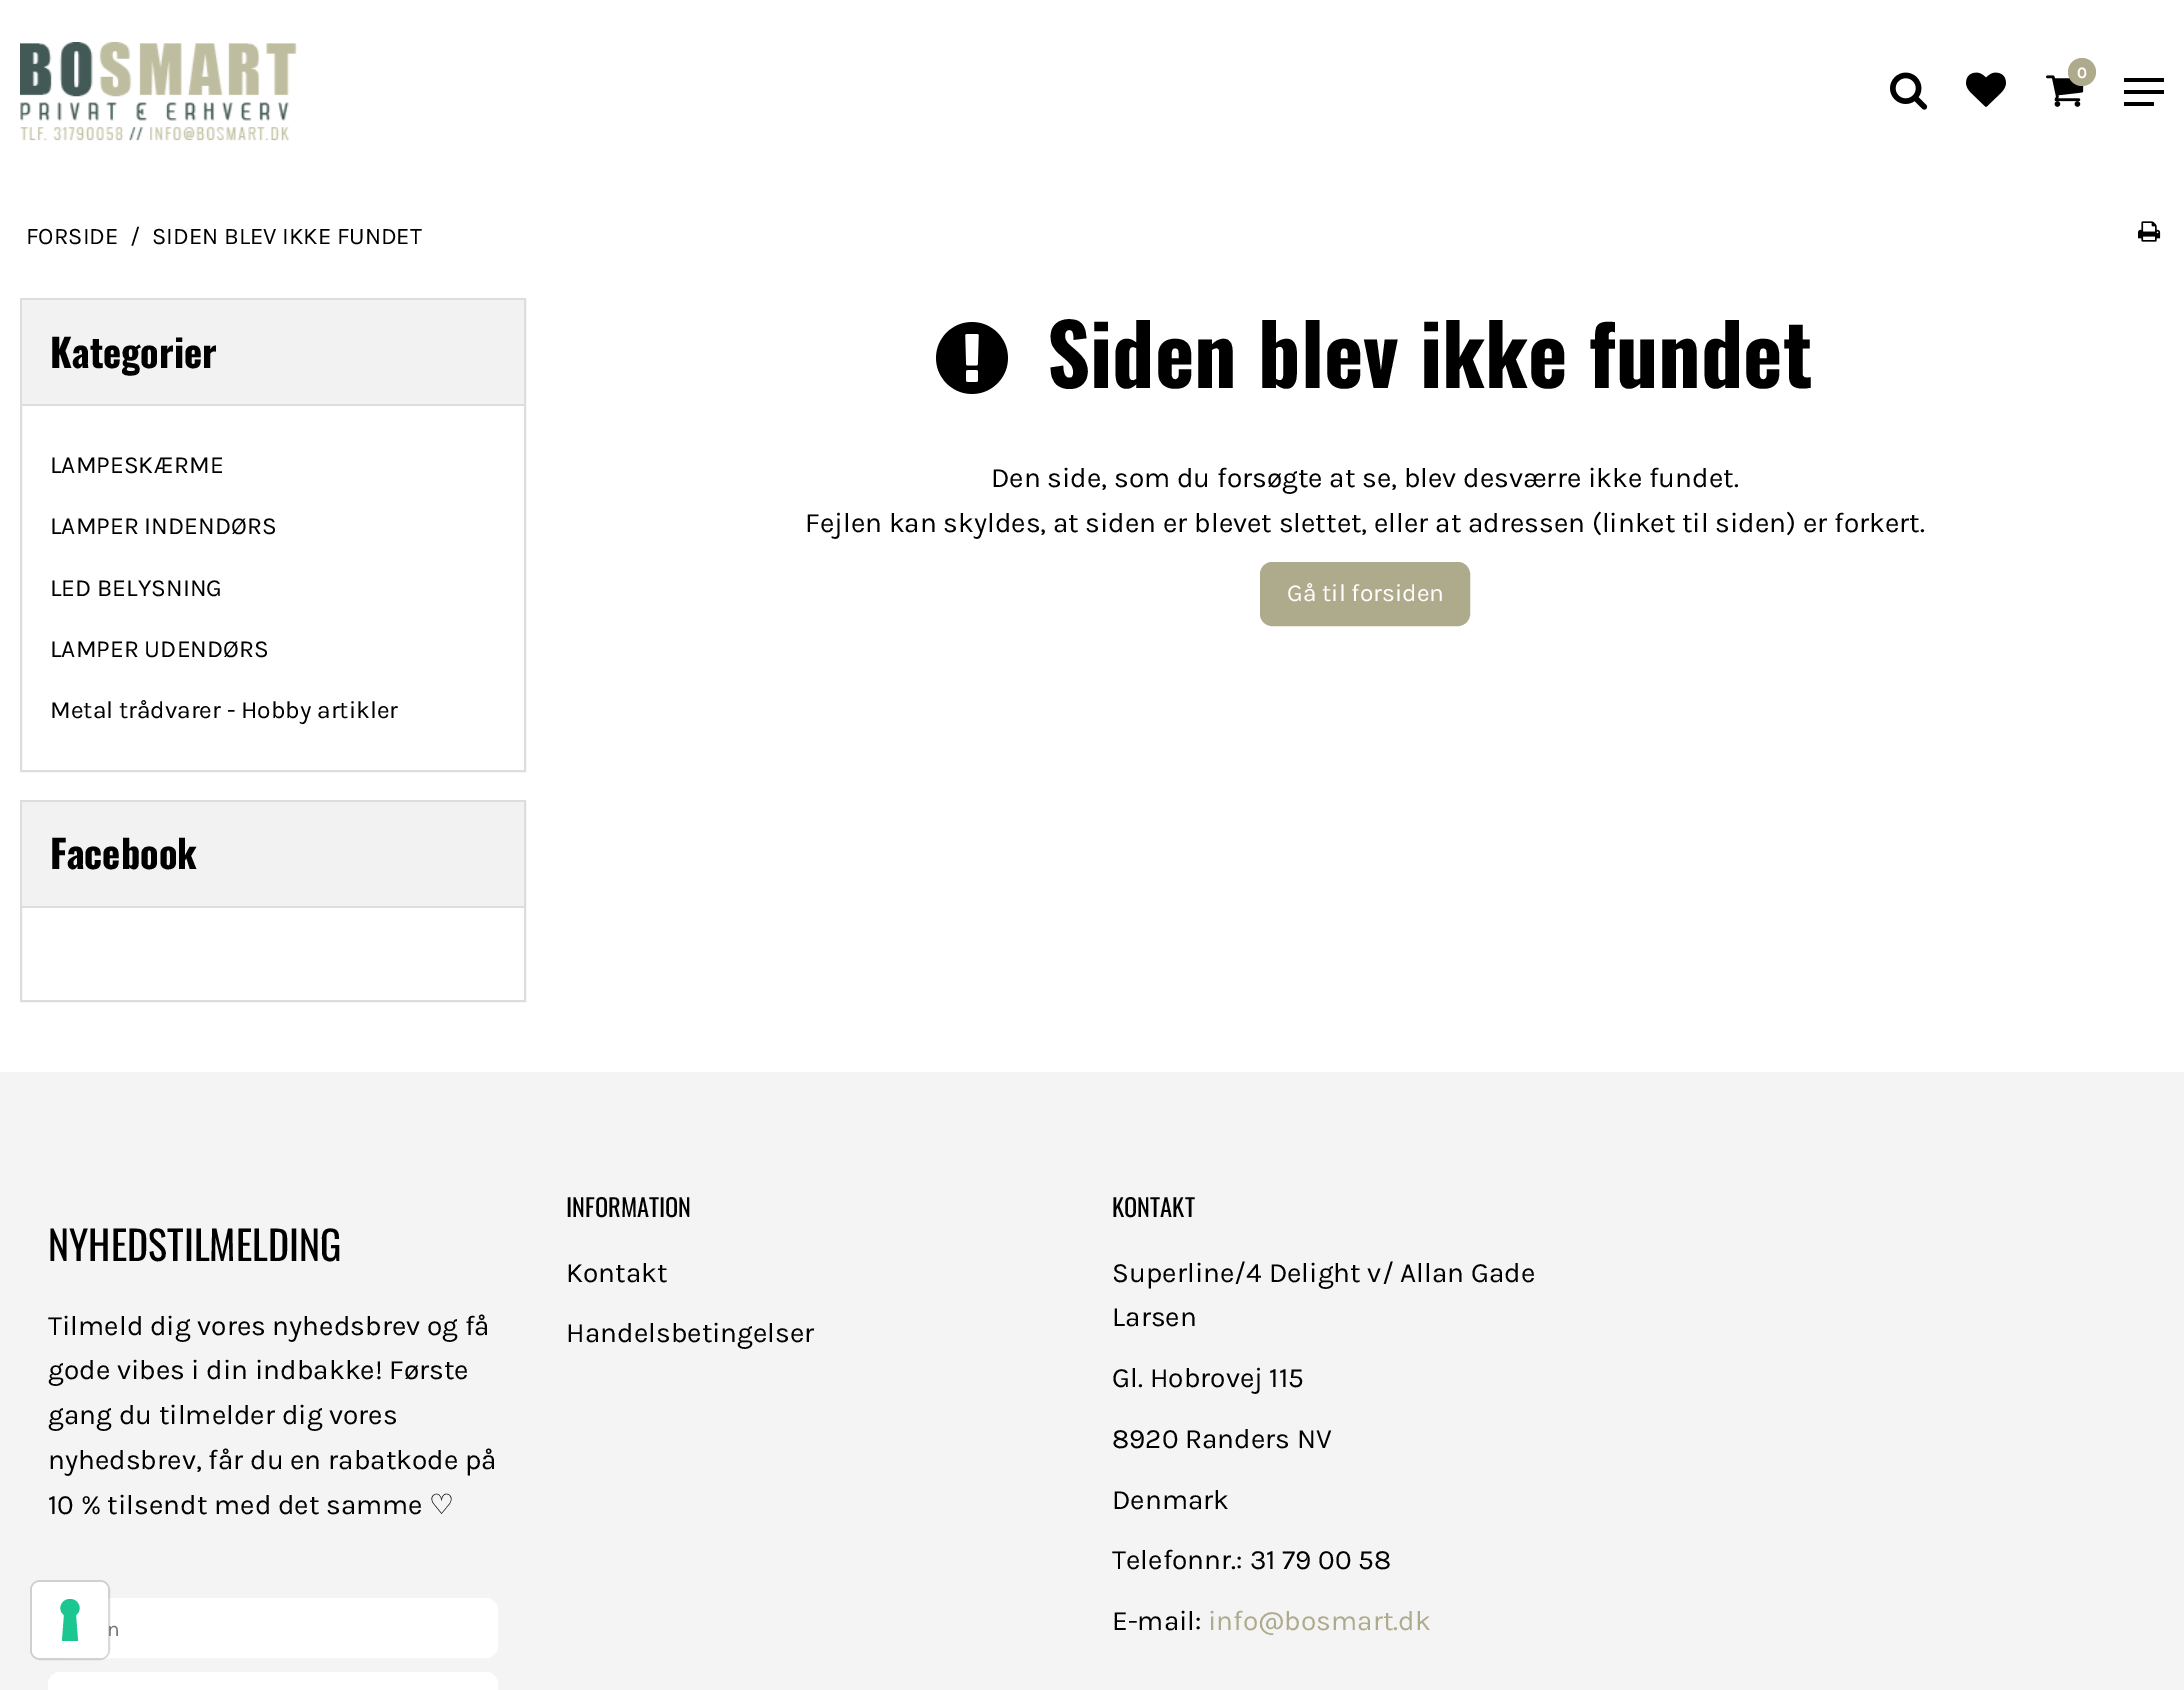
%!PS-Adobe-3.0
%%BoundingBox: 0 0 2184 1690
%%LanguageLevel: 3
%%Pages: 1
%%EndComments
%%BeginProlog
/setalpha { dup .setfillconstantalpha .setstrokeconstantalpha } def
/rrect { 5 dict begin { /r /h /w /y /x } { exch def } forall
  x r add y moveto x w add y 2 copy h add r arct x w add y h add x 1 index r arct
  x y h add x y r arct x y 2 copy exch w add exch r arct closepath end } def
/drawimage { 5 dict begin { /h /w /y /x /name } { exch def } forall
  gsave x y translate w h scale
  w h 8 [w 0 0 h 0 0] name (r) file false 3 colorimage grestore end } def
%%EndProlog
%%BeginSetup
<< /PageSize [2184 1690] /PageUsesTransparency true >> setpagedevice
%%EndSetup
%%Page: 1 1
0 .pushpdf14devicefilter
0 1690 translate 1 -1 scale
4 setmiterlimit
1 setgray
0 0 2184 1690 rectfill
(images/1.raw) 20 42 277 99 drawimage
(images/2.raw) 1890 72 38 38 drawimage
(images/3.raw) 1966 72 40 35 drawimage
(images/4.raw) 2046 75 38 32 drawimage
0.678 0.671 0.549 setrgbcolor
newpath 2082 72 14 0 360 arc closepath fill
0 setgray
2124 78 40 4 rectfill
2124 90 40 4 rectfill
2124 102 30 4 rectfill
(images/5.raw) 2138 221 23 21 drawimage
0.867 setgray
2 setlinewidth
21 299 504 472 rectstroke
0.949 setgray
22 300 502 104 rectfill
0.867 setgray
22 404 502 2 rectfill
21 801 504 200 rectstroke
0.949 setgray
22 802 502 104 rectfill
0.867 setgray
22 906 502 2 rectfill
(images/6.raw) 936 322 72 72 drawimage
0.678 0.671 0.549 setrgbcolor
1261 563 208 62 11 rrect gsave fill grestore
stroke
0.957 setgray
0 1072 2184 618 rectfill
1 setgray
49 1599 448 58 11 rrect gsave fill grestore
stroke
50 1674 446 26 10 rrect fill
49 1673 448 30 11 rrect stroke
/Karla-Bold [16 0 0 -16 0 0] selectfont
2077 78 moveto (0) show
/Karla-Regular [23.75 0 0 -23.75 0 0] selectfont
0 setgray
26 244 moveto (FORSIDE) show
130 244 moveto (/) show
152 244 moveto (SIDEN BLEV IKKE FUNDET) show
/Oswald-Bold [38.5 0 0 -38.5 0 0] selectfont
50 368 moveto (Kategorier) show
/Karla-Regular [24.5 0 0 -24.5 0 0] selectfont
50 473 moveto (LAMPESKÆRME) show
50 534 moveto (LAMPER INDENDØRS) show
50 596 moveto (LED BELYSNING) show
50 657 moveto (LAMPER UDENDØRS) show
50 718 moveto (Metal trådvarer - Hobby artikler) show
/Oswald-Bold [38.5 0 0 -38.5 0 0] selectfont
50 869 moveto (Facebook) show
/Oswald-Bold [84 0 0 -84 0 0] selectfont
1047 388 moveto (Siden blev ikke fundet) show
/Karla-Regular [28 0 0 -28 0 0] selectfont
991 487 moveto (Den side, som du forsøgte at se, blev desværre ikke fundet.) show
805 532 moveto (Fejlen kan skyldes, at siden er blevet slettet, eller at adressen \(linket til siden\) er forkert.) show
/Karla-Regular [24.5 0 0 -24.5 0 0] selectfont
1 setgray
1287 601 moveto (Gå til forsiden) show
/Oswald-Regular [40 0 0 -40 0 0] selectfont
0 setgray
48 1261 moveto (NYHEDSTILMELDING) show
/Karla-Regular [28 0 0 -28 0 0] selectfont
48 1335 moveto (Tilmeld dig vores nyhedsbrev og få) show
48 1379 moveto (gode vibes i din indbakke! Første) show
48 1424 moveto (gang du tilmelder dig vores) show
48 1469 moveto (nyhedsbrev, får du en rabatkode på) show
48 1514 moveto (10 % tilsendt med det samme) show
/DejaVuSans-Regular [28 0 0 -28 0 0] selectfont
429 1514 moveto (♡) show
/Karla-Regular [21 0 0 -21 0 0] selectfont
0.459 setgray
107 1636 moveto (n) show
/Oswald-Regular [24.5 0 0 -24.5 0 0] selectfont
0 setgray
566 1217 moveto (INFORMATION) show
/Karla-Regular [28 0 0 -28 0 0] selectfont
566 1282 moveto (Kontakt) show
566 1342 moveto (Handelsbetingelser) show
/Oswald-Regular [24.5 0 0 -24.5 0 0] selectfont
1112 1217 moveto (KONTAKT) show
/Karla-Regular [28 0 0 -28 0 0] selectfont
1112 1282 moveto (Superline/4 Delight v/ Allan Gade) show
1112 1326 moveto (Larsen) show
1112 1387 moveto (Gl. Hobrovej 115) show
1112 1448 moveto (8920 Randers NV) show
1112 1509 moveto (Denmark) show
1112 1569 moveto (Telefonnr.: 31 79 00 58) show
1112 1630 moveto (E-mail:) show
0.678 0.671 0.549 setrgbcolor
1208 1630 moveto (info@bosmart.dk) show
0.15 setalpha
0 setgray
31 1581 78 78 9 rrect stroke
1 setalpha
1 setgray
32 1582 76 76 8 rrect fill
0.11 0.776 0.569 setrgbcolor
newpath 70 1599 moveto 79 1599 83 1610 76 1615 curveto 78 1641 lineto 62 1641 lineto 64 1615 lineto 57 1610 61 1599 70 1599 curveto closepath eofill
.poppdf14devicefilter showpage
%%EOF
